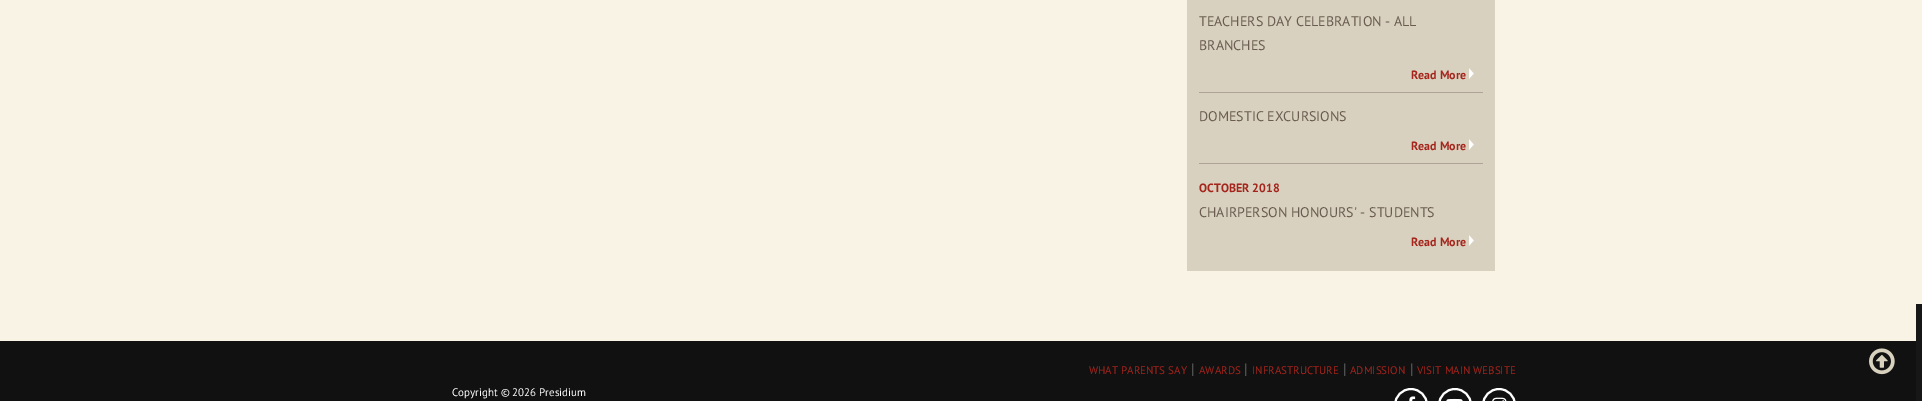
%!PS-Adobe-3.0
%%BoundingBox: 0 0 1922 401
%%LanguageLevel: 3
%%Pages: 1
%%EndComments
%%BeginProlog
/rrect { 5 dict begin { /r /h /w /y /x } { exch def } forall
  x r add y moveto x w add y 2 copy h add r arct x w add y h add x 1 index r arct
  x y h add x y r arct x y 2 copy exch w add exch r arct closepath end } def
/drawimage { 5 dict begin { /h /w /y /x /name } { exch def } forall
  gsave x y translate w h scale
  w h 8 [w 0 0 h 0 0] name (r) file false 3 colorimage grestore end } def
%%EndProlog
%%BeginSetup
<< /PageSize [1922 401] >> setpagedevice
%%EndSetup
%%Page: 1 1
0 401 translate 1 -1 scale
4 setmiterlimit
0.976 0.953 0.898 setrgbcolor
0 0 1922 401 rectfill
0.847 0.82 0.749 setrgbcolor
1187 0 308 271 rectfill
(images/1.raw) 1469 68 5 11 drawimage
0.69 0.635 0.596 setrgbcolor
1199 92 284 1 rectfill
(images/1.raw) 1469 139 5 11 drawimage
1199 163 284 1 rectfill
(images/1.raw) 1469 235 5 11 drawimage
0.067 setgray
0 341 1916 60 rectfill
1 setgray
2 setlinewidth
1395 389 32 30 16 rrect stroke
(images/2.raw) 1409 396 7 5 drawimage
1439 389 32 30 16 rrect stroke
(images/3.raw) 1446 398 17 3 drawimage
1483 389 32 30 16 rrect stroke
(images/4.raw) 1492 397 15 4 drawimage
(images/5.raw) 1869 348 26 27 drawimage
0.09 setgray
1916 304 6 97 rectfill
/PTSans-Regular [14 0 0 -14 0 0] selectfont
0.416 0.361 0.314 setrgbcolor
1199 26 moveto (TEACHERS DAY CELEBRATION - ALL) show
1199 50 moveto (BRANCHES) show
/PTSans-Bold [12 0 0 -12 0 0] selectfont
0.647 0.141 0.11 setrgbcolor
1411 79 moveto (Read More) show
/PTSans-Regular [14 0 0 -14 0 0] selectfont
0.416 0.361 0.314 setrgbcolor
1199 121 moveto (DOMESTIC EXCURSIONS) show
/PTSans-Bold [12 0 0 -12 0 0] selectfont
0.647 0.141 0.11 setrgbcolor
1411 150 moveto (Read More) show
1199 192 moveto (OCTOBER 2018) show
/PTSans-Regular [14 0 0 -14 0 0] selectfont
0.416 0.361 0.314 setrgbcolor
1199 217 moveto (CHAIRPERSON HONOURS' - STUDENTS) show
/PTSans-Bold [12 0 0 -12 0 0] selectfont
0.647 0.141 0.11 setrgbcolor
1411 246 moveto (Read More) show
/PTSans-Regular [11 0 0 -11 0 0] selectfont
1089 374 moveto (WHAT PARENTS SAY) show
/PTSans-Regular [15 0 0 -15 0 0] selectfont
0.4 setgray
1191 374 moveto (|) show
/PTSans-Regular [11 0 0 -11 0 0] selectfont
0.647 0.141 0.11 setrgbcolor
1199 374 moveto (AWARDS) show
/PTSans-Regular [15 0 0 -15 0 0] selectfont
0.4 setgray
1244 374 moveto (|) show
/PTSans-Regular [11 0 0 -11 0 0] selectfont
0.647 0.141 0.11 setrgbcolor
1252 374 moveto (INFRASTRUCTURE) show
/PTSans-Regular [15 0 0 -15 0 0] selectfont
0.4 setgray
1343 374 moveto (|) show
/PTSans-Regular [11 0 0 -11 0 0] selectfont
0.647 0.141 0.11 setrgbcolor
1350 374 moveto (ADMISSION) show
/PTSans-Regular [15 0 0 -15 0 0] selectfont
0.4 setgray
1410 374 moveto (|) show
/PTSans-Regular [11 0 0 -11 0 0] selectfont
0.647 0.141 0.11 setrgbcolor
1417 374 moveto (VISIT MAIN WEBSITE) show
1 setgray
452 396 moveto (Copyright © 2026 Presidium) show
showpage
%%EOF
